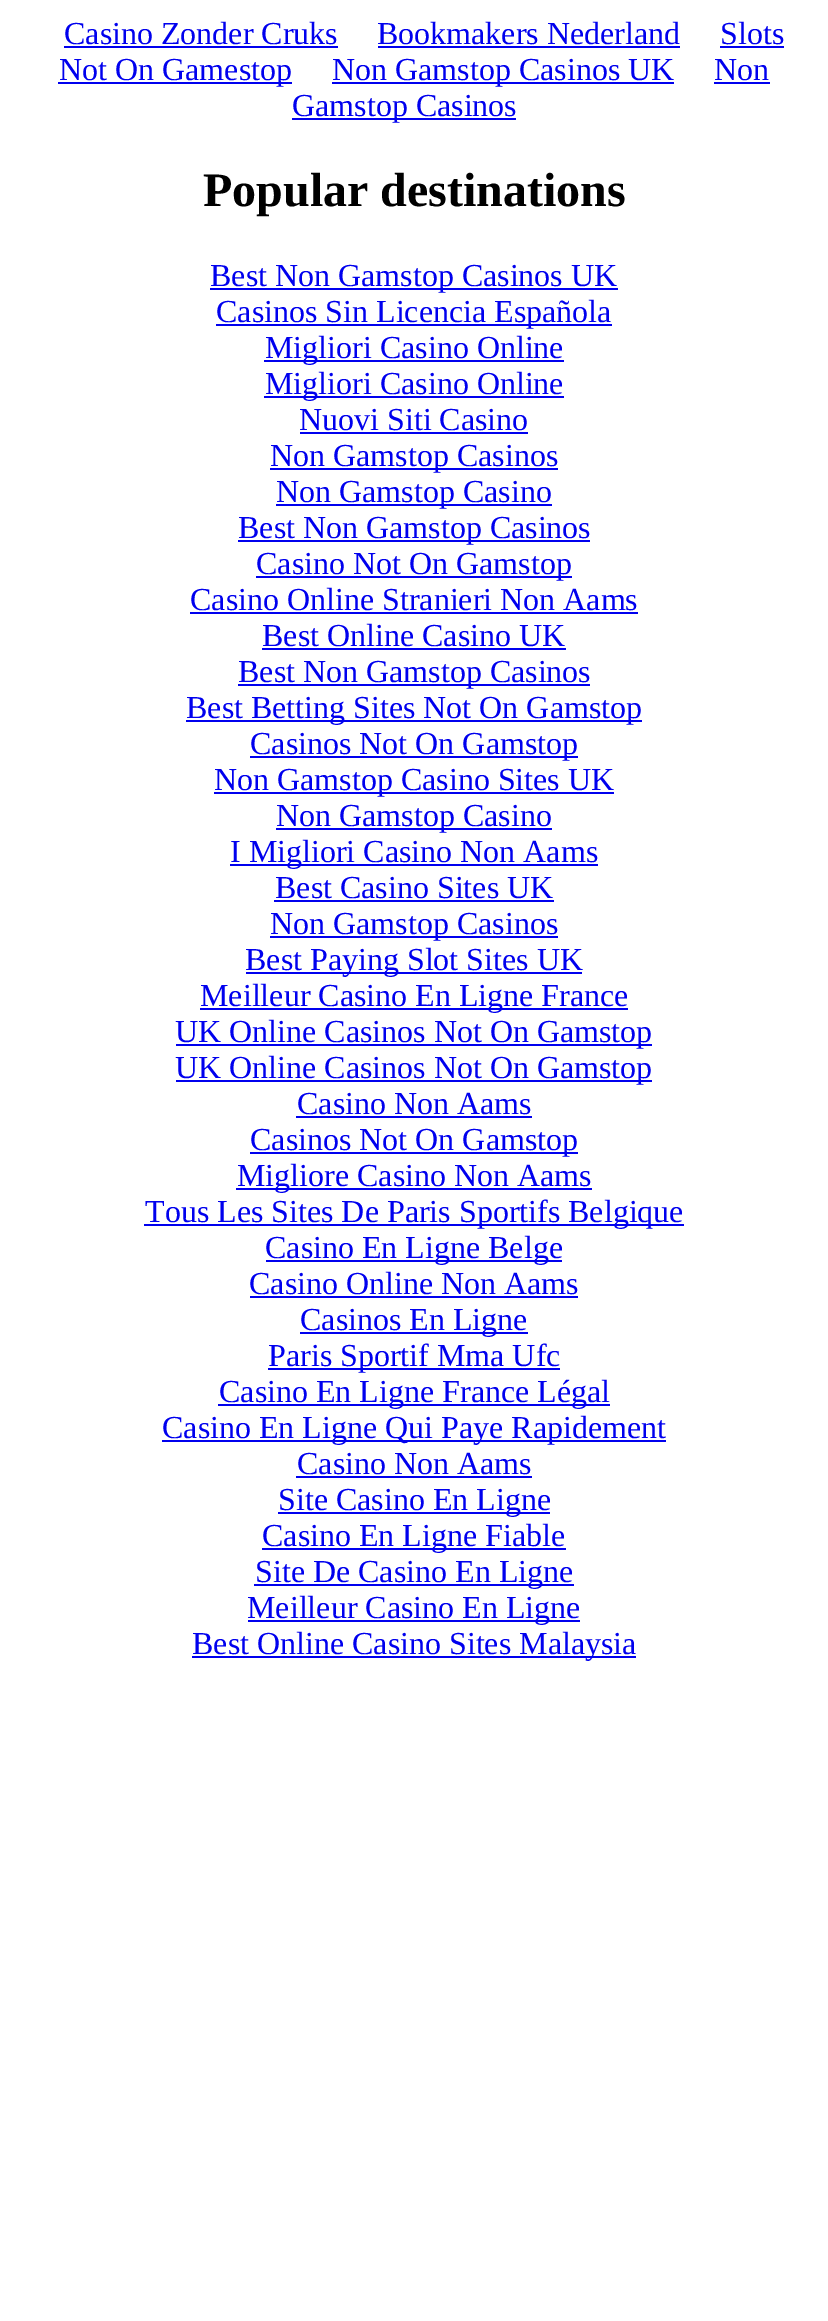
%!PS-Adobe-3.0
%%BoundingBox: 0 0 828 2321
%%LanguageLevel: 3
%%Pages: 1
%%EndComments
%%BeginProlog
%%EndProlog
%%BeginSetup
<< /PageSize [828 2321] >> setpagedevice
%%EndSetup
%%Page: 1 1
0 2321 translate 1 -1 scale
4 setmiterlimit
1 setgray
0 0 828 2321 rectfill
0 0 0.933 setrgbcolor
64 46 274 2 rectfill
378 46 302 2 rectfill
720 46 64 2 rectfill
58 82 234 2 rectfill
332 82 342 2 rectfill
714 82 56 2 rectfill
292 118 224 2 rectfill
210 288 408 2 rectfill
216 324 396 2 rectfill
264 360 300 2 rectfill
264 396 300 2 rectfill
300 432 228 2 rectfill
270 468 288 2 rectfill
276 504 276 2 rectfill
238 540 352 2 rectfill
256 576 316 2 rectfill
190 612 448 2 rectfill
262 648 304 2 rectfill
238 684 352 2 rectfill
186 720 456 2 rectfill
250 756 328 2 rectfill
214 792 400 2 rectfill
276 828 276 2 rectfill
230 864 368 2 rectfill
274 900 280 2 rectfill
270 936 288 2 rectfill
246 972 336 2 rectfill
200 1008 428 2 rectfill
176 1044 476 2 rectfill
176 1080 476 2 rectfill
296 1116 236 2 rectfill
250 1152 328 2 rectfill
236 1188 356 2 rectfill
144 1224 540 2 rectfill
266 1260 296 2 rectfill
250 1296 328 2 rectfill
300 1332 228 2 rectfill
268 1368 292 2 rectfill
218 1404 392 2 rectfill
162 1440 504 2 rectfill
296 1476 236 2 rectfill
278 1512 272 2 rectfill
262 1548 304 2 rectfill
254 1584 320 2 rectfill
248 1620 332 2 rectfill
192 1656 444 2 rectfill
/LiberationSerif-Regular [32 0 0 -32 0 0] selectfont
64 44 moveto (Casino Zonder Cruks) show
377 44 moveto (Bookmakers Nederland) show
720 44 moveto (Slots) show
59 80 moveto (Not On Gamestop) show
332 80 moveto (Non Gamstop Casinos UK) show
714 80 moveto (Non) show
292 116 moveto (Gamstop Casinos) show
/LiberationSerif-Bold [48 0 0 -48 0 0] selectfont
0 setgray
203 206 moveto (Popular destinations) show
/LiberationSerif-Regular [32 0 0 -32 0 0] selectfont
0 0 0.933 setrgbcolor
210 286 moveto (Best Non Gamstop Casinos UK) show
216 322 moveto (Casinos Sin Licencia Española) show
265 358 moveto (Migliori Casino Online) show
265 394 moveto (Migliori Casino Online) show
299 430 moveto (Nuovi Siti Casino) show
270 466 moveto (Non Gamstop Casinos) show
276 502 moveto (Non Gamstop Casino) show
238 538 moveto (Best Non Gamstop Casinos) show
256 574 moveto (Casino Not On Gamstop) show
190 610 moveto (Casino Online Stranieri Non Aams) show
262 646 moveto (Best Online Casino UK) show
238 682 moveto (Best Non Gamstop Casinos) show
186 718 moveto (Best Betting Sites Not On Gamstop) show
250 754 moveto (Casinos Not On Gamstop) show
214 790 moveto (Non Gamstop Casino Sites UK) show
276 826 moveto (Non Gamstop Casino) show
230 862 moveto (I Migliori Casino Non Aams) show
275 898 moveto (Best Casino Sites UK) show
270 934 moveto (Non Gamstop Casinos) show
245 970 moveto (Best Paying Slot Sites UK) show
200 1006 moveto (Meilleur Casino En Ligne France) show
175 1042 moveto (UK Online Casinos Not On Gamstop) show
175 1078 moveto (UK Online Casinos Not On Gamstop) show
297 1114 moveto (Casino Non Aams) show
250 1150 moveto (Casinos Not On Gamstop) show
237 1186 moveto (Migliore Casino Non Aams) show
145 1222 moveto (Tous Les Sites De Paris Sportifs Belgique) show
265 1258 moveto (Casino En Ligne Belge) show
249 1294 moveto (Casino Online Non Aams) show
300 1330 moveto (Casinos En Ligne) show
268 1366 moveto (Paris Sportif Mma Ufc) show
219 1402 moveto (Casino En Ligne France Légal) show
162 1438 moveto (Casino En Ligne Qui Paye Rapidement) show
297 1474 moveto (Casino Non Aams) show
278 1510 moveto (Site Casino En Ligne) show
262 1546 moveto (Casino En Ligne Fiable) show
255 1582 moveto (Site De Casino En Ligne) show
247 1618 moveto (Meilleur Casino En Ligne) show
192 1654 moveto (Best Online Casino Sites Malaysia) show
showpage
%%EOF
